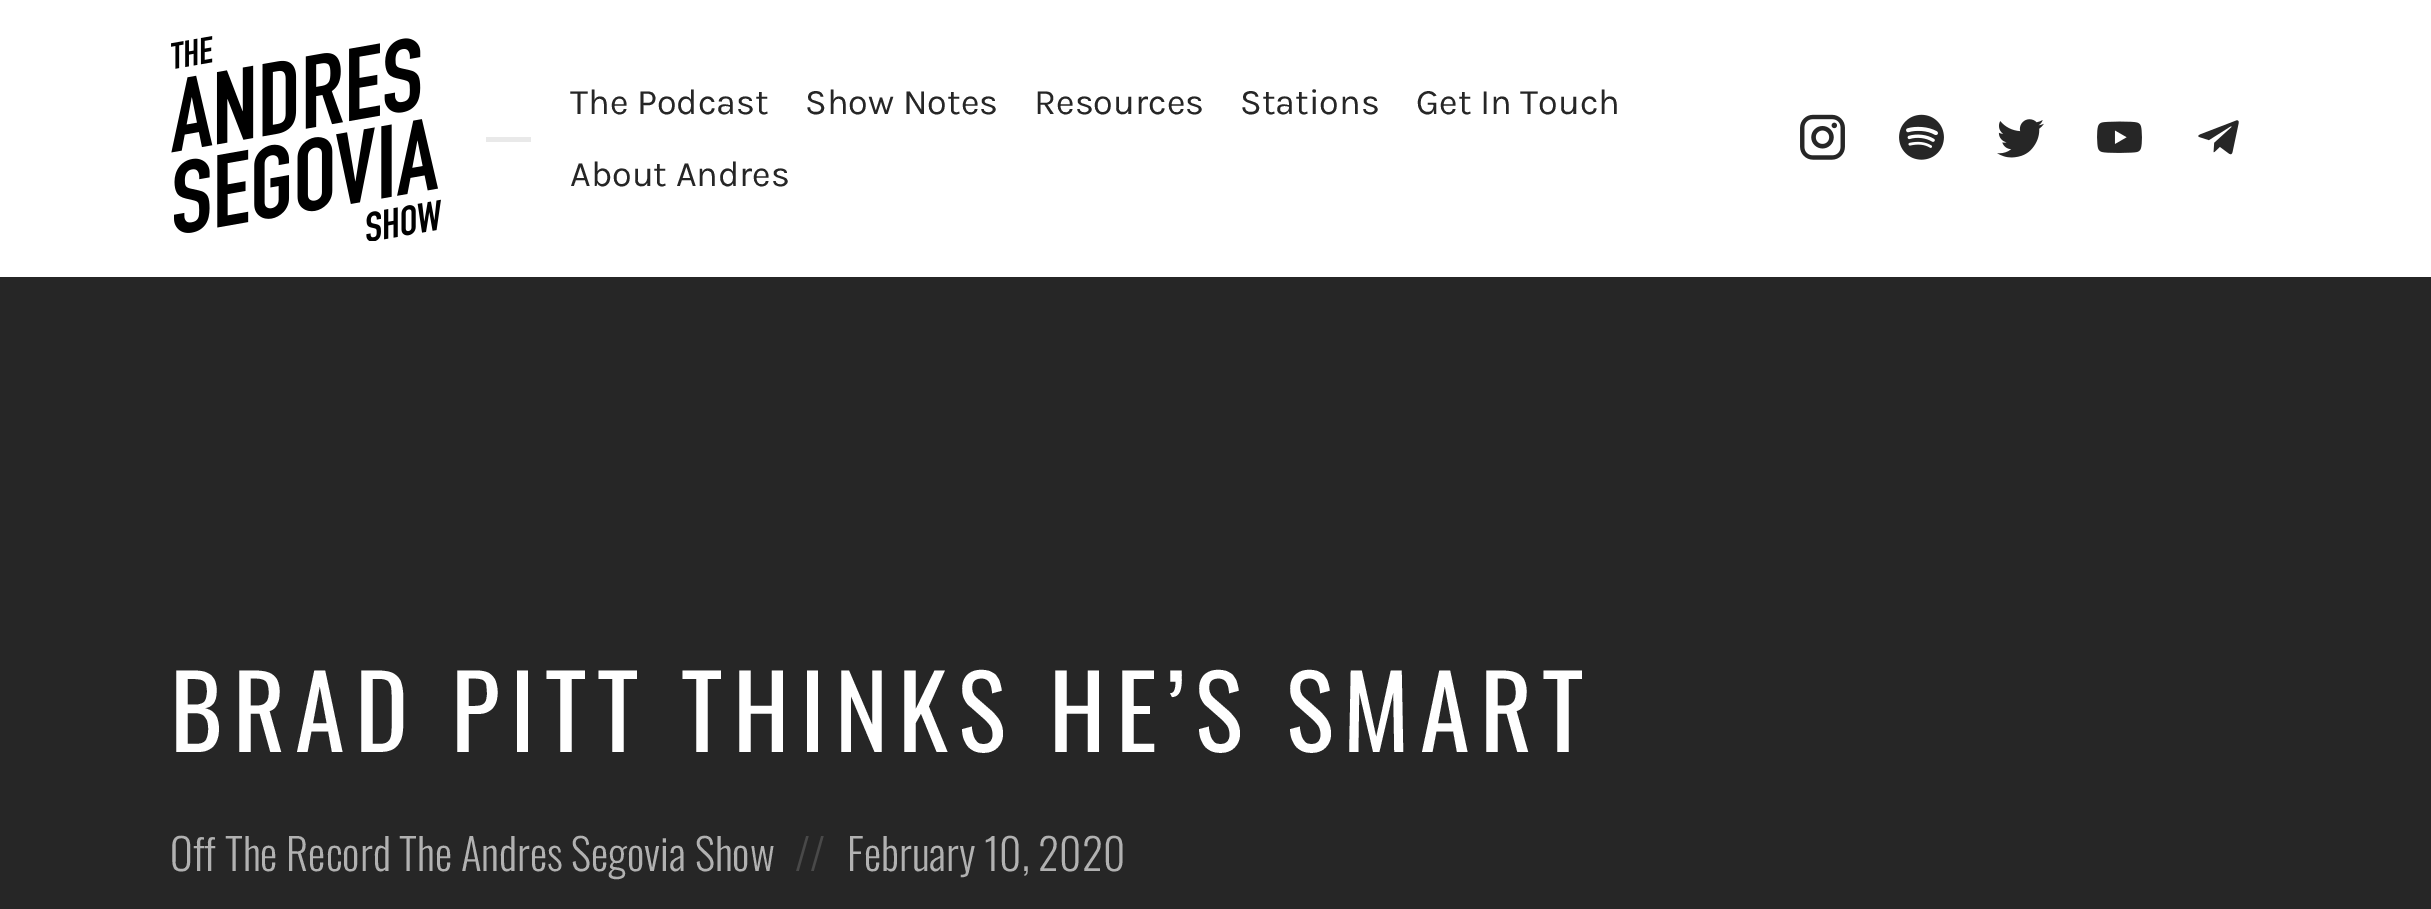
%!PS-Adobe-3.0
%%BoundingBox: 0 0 2431 909
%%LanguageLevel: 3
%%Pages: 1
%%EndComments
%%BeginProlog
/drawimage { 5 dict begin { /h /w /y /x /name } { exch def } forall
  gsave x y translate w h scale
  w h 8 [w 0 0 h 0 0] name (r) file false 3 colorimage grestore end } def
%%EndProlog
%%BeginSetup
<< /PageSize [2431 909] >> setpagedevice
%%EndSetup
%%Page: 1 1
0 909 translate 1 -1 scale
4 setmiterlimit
1 setgray
0 0 2431 909 rectfill
(images/1.raw) 171 36 270 205 drawimage
0.914 setgray
486 137 45 5 rectfill
(images/2.raw) 1800 114 45 46 drawimage
(images/3.raw) 1899 114 45 46 drawimage
(images/4.raw) 1997 119 47 39 drawimage
(images/5.raw) 2097 121 45 32 drawimage
(images/6.raw) 2198 120 41 35 drawimage
0.149 setgray
0 277 2431 632 rectfill
/Karla-Regular [36 0 0 -36 0 0] selectfont
570 114 moveto (The Podcast) show
805 114 moveto (Show Notes) show
1034 114 moveto (Resources) show
1240 114 moveto (Stations) show
1416 114 moveto (Get In Touch) show
570 186 moveto (About Andres) show
/Oswald-Regular [100.75 0 0 -100.75 0 0] selectfont
1 setgray
170 752 moveto 10.1 0 (BRAD PITT THINKS HE’S SMART) ashow
/Oswald-Light [43.25 0 0 -43.25 0 0] selectfont
0.694 setgray
170 871 moveto (Off The Record The Andres Segovia Show) show
0.286 setgray
795 871 moveto (//) show
0.694 setgray
847 871 moveto (February 10, 2020) show
showpage
%%EOF
